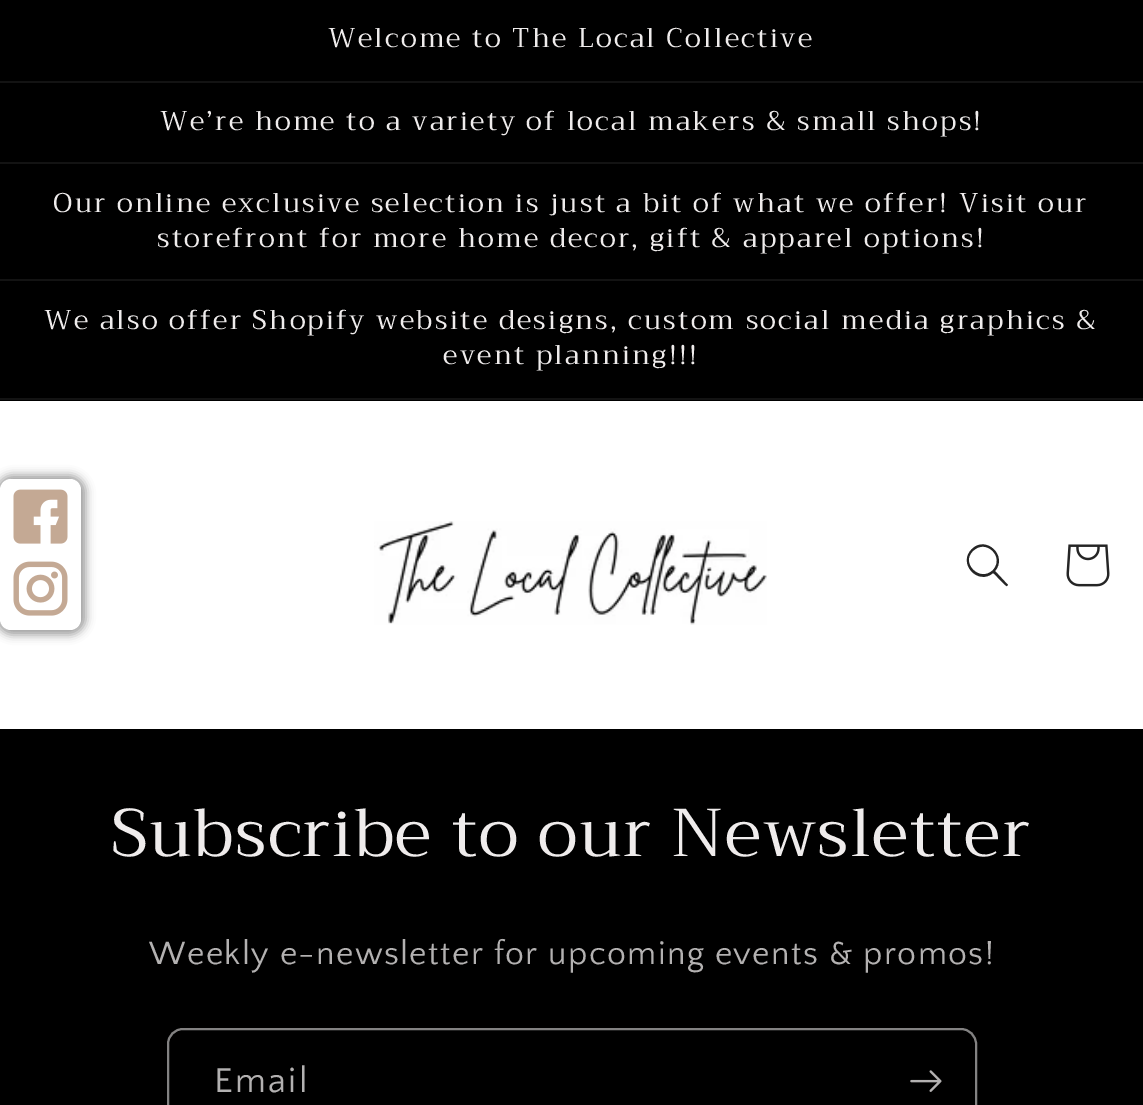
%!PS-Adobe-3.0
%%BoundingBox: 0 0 1143 1105
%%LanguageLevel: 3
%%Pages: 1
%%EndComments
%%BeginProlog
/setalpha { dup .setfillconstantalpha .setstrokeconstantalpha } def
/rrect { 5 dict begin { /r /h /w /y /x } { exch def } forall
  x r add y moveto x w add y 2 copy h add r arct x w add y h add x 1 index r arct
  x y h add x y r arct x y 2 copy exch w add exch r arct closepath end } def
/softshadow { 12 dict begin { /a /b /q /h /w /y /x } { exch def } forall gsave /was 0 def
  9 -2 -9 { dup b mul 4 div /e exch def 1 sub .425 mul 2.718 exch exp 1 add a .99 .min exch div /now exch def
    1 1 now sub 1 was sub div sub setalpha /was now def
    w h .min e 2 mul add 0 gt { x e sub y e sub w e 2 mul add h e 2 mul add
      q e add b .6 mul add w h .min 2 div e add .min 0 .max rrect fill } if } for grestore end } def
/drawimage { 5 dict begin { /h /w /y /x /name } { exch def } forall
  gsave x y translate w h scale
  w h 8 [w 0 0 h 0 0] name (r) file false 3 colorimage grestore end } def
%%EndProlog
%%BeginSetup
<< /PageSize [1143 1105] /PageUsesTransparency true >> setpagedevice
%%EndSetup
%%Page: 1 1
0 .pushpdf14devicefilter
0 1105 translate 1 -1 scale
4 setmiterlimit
1 setgray
0 0 1143 1105 rectfill
0 setgray
0 0 1143 81 rectfill
0.075 setgray
0 81 1143 2 rectfill
0 setgray
0 83 1143 79 rectfill
0.075 setgray
0 162 1143 2 rectfill
0 setgray
0 164 1143 115 rectfill
0.075 setgray
0 279 1143 2 rectfill
0 setgray
0 281 1143 120 rectfill
0.075 setgray
0 398 1143 2 rectfill
0.62 setgray
-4 475 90 160 16 4.5 1 softshadow
1 setgray
0 479 81 151 11 rrect fill
(images/1.raw) 13 489 55 55 drawimage
(images/2.raw) 13 561 55 55 drawimage
(images/3.raw) 374 521 393 104 drawimage
0.145 setgray
newpath 993 570 moveto 980 583 960 563 973 551 curveto 986 538 1005 557 993 570 curveto closepath 993 573 moveto 978 586 957 563 972 549 curveto 986 535 1008 556 995 571 curveto 1008 585 lineto 1007 586 lineto 1006 587 995 574 993 573 curveto closepath eofill
(images/4.raw) 1066 544 44 43 drawimage
0 setgray
0 729 1143 376 rectfill
0.514 0.51 0.51 setrgbcolor
2 setlinewidth
168 1029 808 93 15 rrect stroke
(images/5.raw) 910 1070 32 22 drawimage
/Trirong-Regular [27 0 0 -27 0 0] selectfont
0.937 0.925 0.925 setrgbcolor
328 47 moveto 2.25 0 (Welcome to The Local Collective) ashow
160 130 moveto 2.25 0 (We’re home to a variety of local makers & small shops!) ashow
53 212 moveto 2.25 0 (Our online exclusive selection is just a bit of what we offer! Visit our) ashow
157 247 moveto 2.25 0 (storefront for more home decor, gift & apparel options!) ashow
44 329 moveto 2.25 0 (We also offer Shopify website designs, custom social media graphics &) ashow
443 364 moveto 2.25 0 (event planning!!!) ashow
/Trirong-Regular [67.5 0 0 -67.5 0 0] selectfont
111 856 moveto 1.35 0 (Subscribe to our Newsletter) ashow
/QuattrocentoSans-Regular [33.75 0 0 -33.75 0 0] selectfont
0.702 0.694 0.694 setrgbcolor
149 964 moveto 1.35 0 (Weekly e-newsletter for upcoming events & promos!) ashow
/QuattrocentoSans-Regular [36 0 0 -36 0 0] selectfont
214 1092 moveto 2.25 0 (Email) ashow
.poppdf14devicefilter showpage
%%EOF
